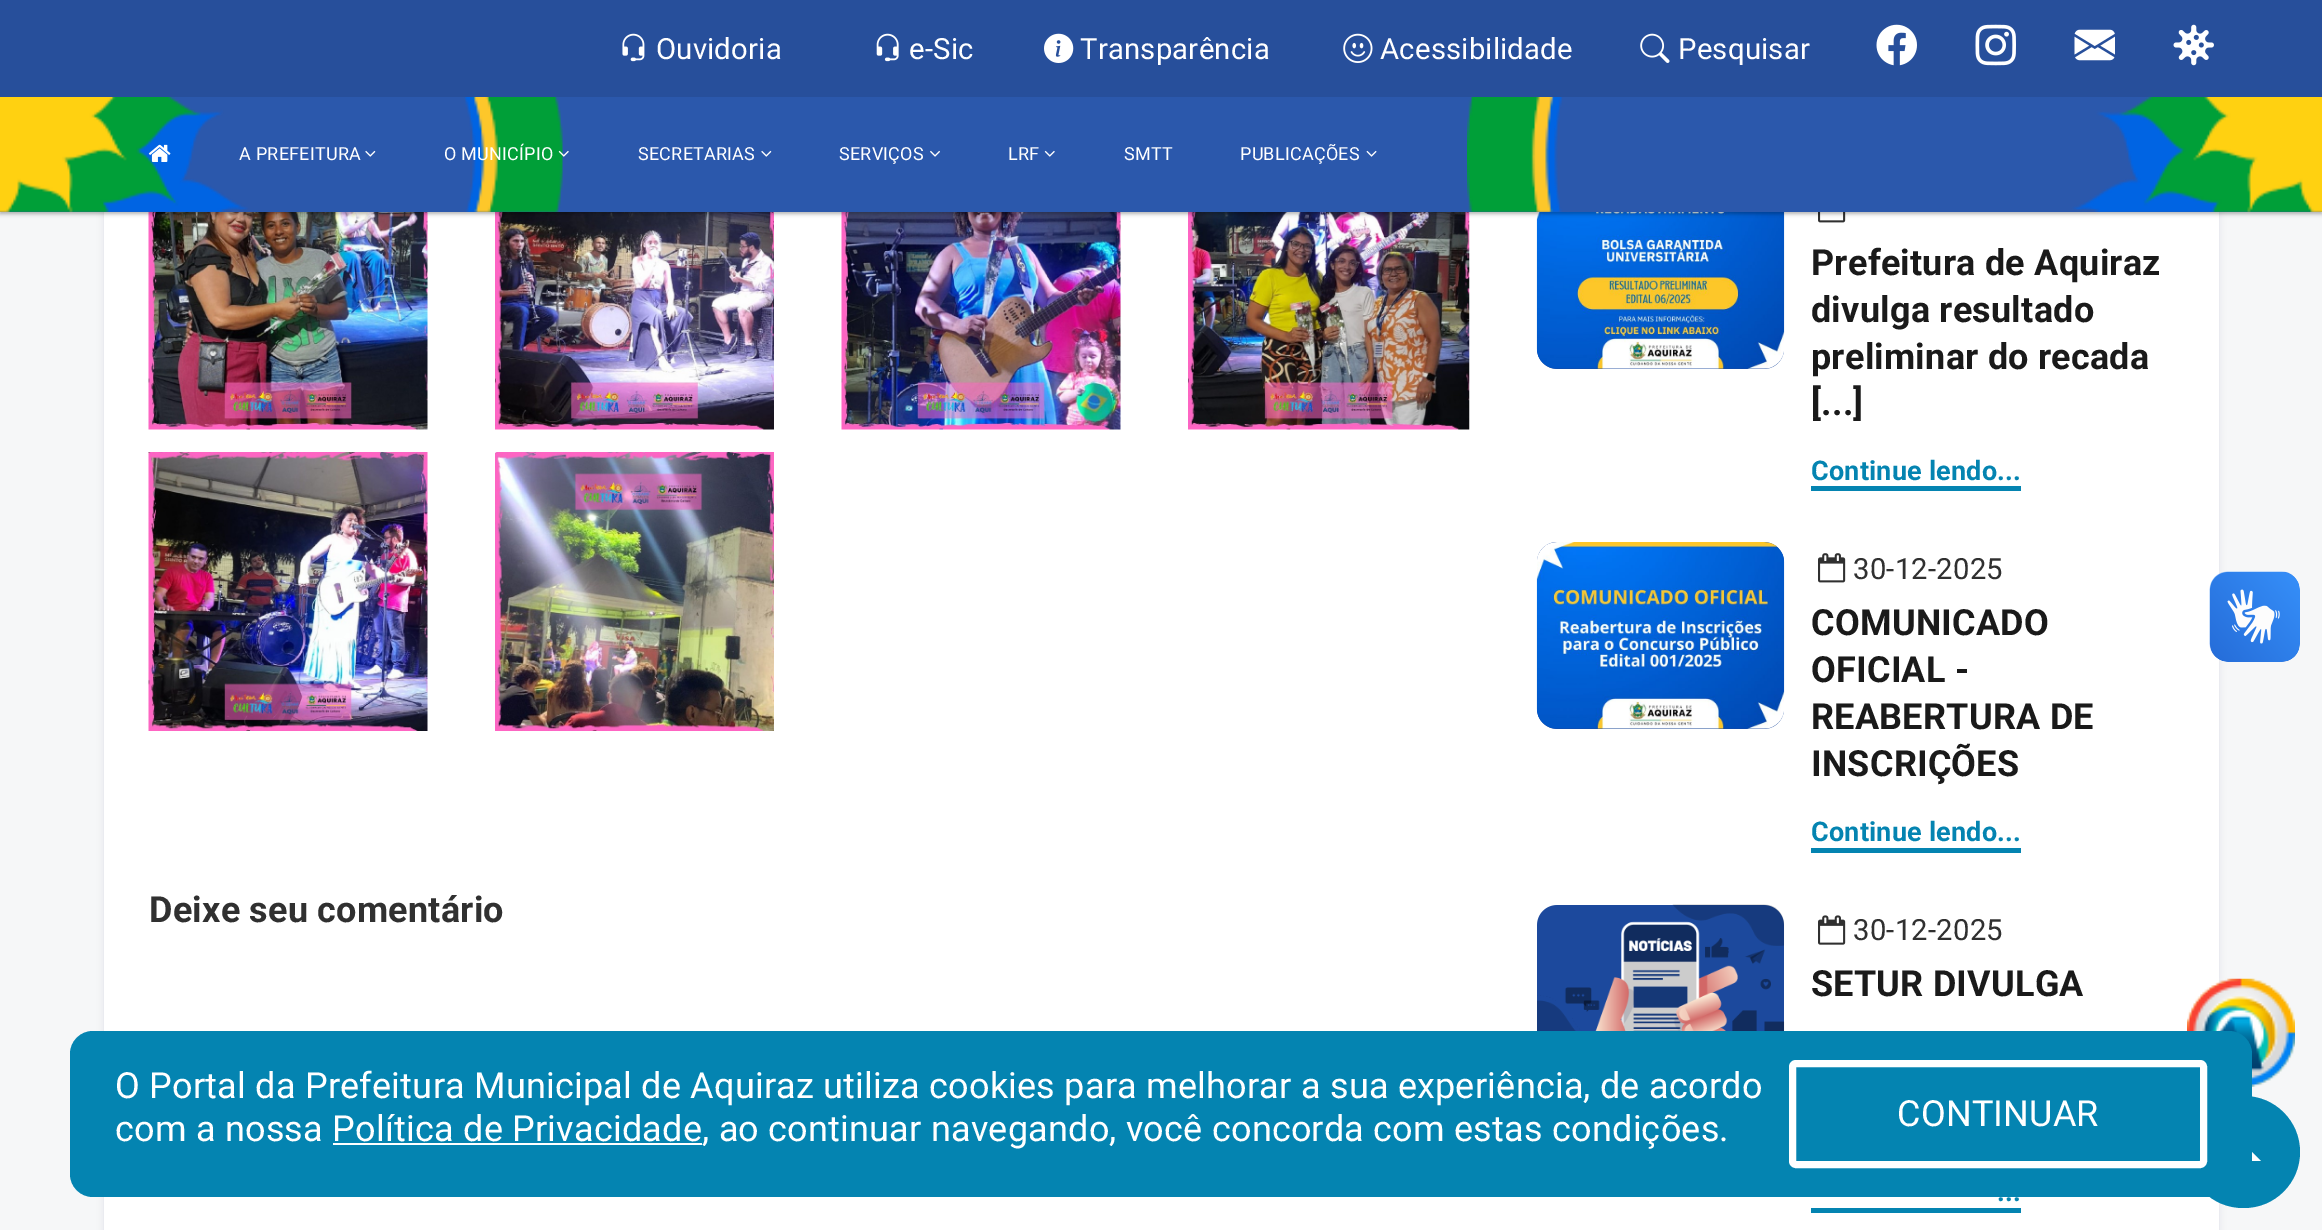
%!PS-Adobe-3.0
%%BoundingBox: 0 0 2322 1230
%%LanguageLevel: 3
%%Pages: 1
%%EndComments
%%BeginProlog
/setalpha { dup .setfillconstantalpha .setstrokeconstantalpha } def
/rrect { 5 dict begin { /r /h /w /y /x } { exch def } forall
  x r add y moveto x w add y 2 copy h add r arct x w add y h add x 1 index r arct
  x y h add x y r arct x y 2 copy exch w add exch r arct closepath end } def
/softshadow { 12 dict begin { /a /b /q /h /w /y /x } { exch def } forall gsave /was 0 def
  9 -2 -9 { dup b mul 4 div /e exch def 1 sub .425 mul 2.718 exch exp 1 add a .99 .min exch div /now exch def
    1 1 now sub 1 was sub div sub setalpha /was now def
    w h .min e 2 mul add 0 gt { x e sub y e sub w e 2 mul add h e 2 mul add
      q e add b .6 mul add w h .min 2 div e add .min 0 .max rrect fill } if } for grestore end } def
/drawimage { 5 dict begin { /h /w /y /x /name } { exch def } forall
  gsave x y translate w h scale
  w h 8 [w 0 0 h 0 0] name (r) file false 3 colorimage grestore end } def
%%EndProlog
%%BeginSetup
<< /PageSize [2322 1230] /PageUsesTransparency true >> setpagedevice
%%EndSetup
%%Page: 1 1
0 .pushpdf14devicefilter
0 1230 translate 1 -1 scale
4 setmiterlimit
0.965 0.969 0.973 setrgbcolor
0 0 2322 1230 rectfill
0.012 0 0.278 setrgbcolor
104 -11 2115 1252 0 3.5 0.09 softshadow
1 setgray
104 212 2115 1018 rectfill
(images/17.raw) 148 212 280 218 drawimage
(images/18.raw) 495 212 279 218 drawimage
(images/19.raw) 841 212 280 218 drawimage
(images/20.raw) 1188 212 282 218 drawimage
0.11 0.286 0.616 setrgbcolor
1537 182 247 187 20 rrect fill
(images/23.raw) 1536 212 249 157 drawimage
(images/24.raw) 1818 212 28 11 drawimage
0 setgray
0 2 2322 212 0 2 0.3 softshadow
0.153 0.31 0.608 setrgbcolor
0 0 2322 97 rectfill
(images/1.raw) 622 33 23 29 drawimage
(images/2.raw) 876 33 23 29 drawimage
(images/3.raw) 1044 33 30 30 drawimage
(images/4.raw) 1343 33 30 30 drawimage
(images/5.raw) 1640 33 30 30 drawimage
(images/6.raw) 1876 24 41 42 drawimage
(images/7.raw) 1975 24 41 42 drawimage
(images/8.raw) 2074 29 41 32 drawimage
(images/9.raw) 2173 24 41 42 drawimage
0.169 0.345 0.675 setrgbcolor
0 97 2322 115 rectfill
(images/10.raw) 0 97 2322 115 drawimage
(images/11.raw) 148 144 23 18 drawimage
(images/12.raw) 365 150 11 7 drawimage
(images/13.raw) 558 150 11 7 drawimage
(images/12.raw) 761 150 11 7 drawimage
(images/14.raw) 930 150 10 7 drawimage
(images/15.raw) 1044 150 11 7 drawimage
(images/16.raw) 1366 150 11 7 drawimage
(images/21.raw) 148 452 280 279 drawimage
(images/22.raw) 495 452 279 279 drawimage
0.016 0.518 0.694 setrgbcolor
1811 486 210 5 rectfill
0.11 0.286 0.616 setrgbcolor
1537 542 247 187 20 rrect fill
(images/25.raw) 1536 542 249 187 drawimage
(images/26.raw) 1818 553 28 30 drawimage
0.016 0.518 0.694 setrgbcolor
1811 848 210 5 rectfill
0.11 0.286 0.616 setrgbcolor
1537 905 247 184 20 rrect fill
(images/27.raw) 1537 904 248 127 drawimage
(images/28.raw) 1818 915 28 30 drawimage
0.016 0.518 0.694 setrgbcolor
1811 1208 210 5 rectfill
(images/29.raw) 2209 571 91 91 drawimage
(images/30.raw) 2210 572 90 90 drawimage
(images/31.raw) 2187 978 108 109 drawimage
2187 1096 113 112 56 rrect fill
1 setgray
newpath 2261 1161 moveto 2225 1161 lineto 2243 1143 lineto closepath fill
0.016 0.518 0.694 setrgbcolor
70 1031 2182 166 23 rrect fill
1 setgray
333 1143 369 2 rectfill
7 setlinewidth
1792.5 1063.5 411 101 3.5 rrect stroke
/Roboto-Regular [29.25 0 0 -29.25 0 0] selectfont
656 59 moveto 0.23 0 (Ouvidoria) ashow
909 59 moveto 0.23 0 (e-Sic) ashow
1080 59 moveto 0.23 0 (Transparência) ashow
1380 59 moveto 0.23 0 (Acessibilidade) ashow
1678 59 moveto 0.23 0 (Pesquisar) ashow
/Roboto-Regular [18 0 0 -18 0 0] selectfont
239 160 moveto 0.23 0 (A PREFEITURA) ashow
444 160 moveto 0.23 0 (O MUNICÍPIO) ashow
638 160 moveto 0.23 0 (SECRETARIAS) ashow
839 160 moveto 0.23 0 (SERVIÇOS) ashow
1008 160 moveto 0.23 0 (LRF) ashow
1124 160 moveto 0.23 0 (SMTT) ashow
1240 160 moveto 0.23 0 (PUBLICAÇÕES) ashow
/Roboto-Bold [36 0 0 -36 0 0] selectfont
0.188 setgray
149 922 moveto 0.23 0 (Deixe seu comentário) ashow
0.102 setgray
1811 275 moveto 0.23 0 (Prefeitura de Aquiraz) ashow
1811 322 moveto 0.23 0 (divulga resultado) ashow
1811 369 moveto 0.23 0 (preliminar do recada) ashow
1811 415 moveto 0.23 0 ([...]) ashow
/Roboto-Bold [27 0 0 -27 0 0] selectfont
0.016 0.518 0.694 setrgbcolor
1811 480 moveto 0.23 0 (Continue lendo...) ashow
/Roboto-Regular [29.25 0 0 -29.25 0 0] selectfont
0.188 setgray
1853 579 moveto 0.23 0 (30-12-2025) ashow
/Roboto-Bold [36 0 0 -36 0 0] selectfont
0.102 setgray
1811 635 moveto 0.23 0 (COMUNICADO) ashow
1811 682 moveto 0.23 0 (OFICIAL -) ashow
1811 729 moveto 0.23 0 (REABERTURA DE) ashow
1811 776 moveto 0.23 0 (INSCRIÇÕES) ashow
/Roboto-Bold [27 0 0 -27 0 0] selectfont
0.016 0.518 0.694 setrgbcolor
1811 841 moveto 0.23 0 (Continue lendo...) ashow
/Roboto-Regular [29.25 0 0 -29.25 0 0] selectfont
0.188 setgray
1853 940 moveto 0.23 0 (30-12-2025) ashow
/Roboto-Bold [36 0 0 -36 0 0] selectfont
0.102 setgray
1811 996 moveto 0.23 0 (SETUR DIVULGA) ashow
/Roboto-Bold [27 0 0 -27 0 0] selectfont
0.016 0.518 0.694 setrgbcolor
1997 1201 moveto 0.23 0 (...) ashow
/Roboto-Regular [36 0 0 -36 0 0] selectfont
1 setgray
115 1098 moveto 0.23 0 (O Portal da Prefeitura Municipal de Aquiraz utiliza cookies para melhorar a sua experiência, de acordo) ashow
115 1141 moveto 0.23 0 (com a nossa Política de Privacidade, ao continuar navegando, você concorda com estas condições.) ashow
1897 1126 moveto 0.23 0 (CONTINUAR) ashow
.poppdf14devicefilter showpage
%%EOF
